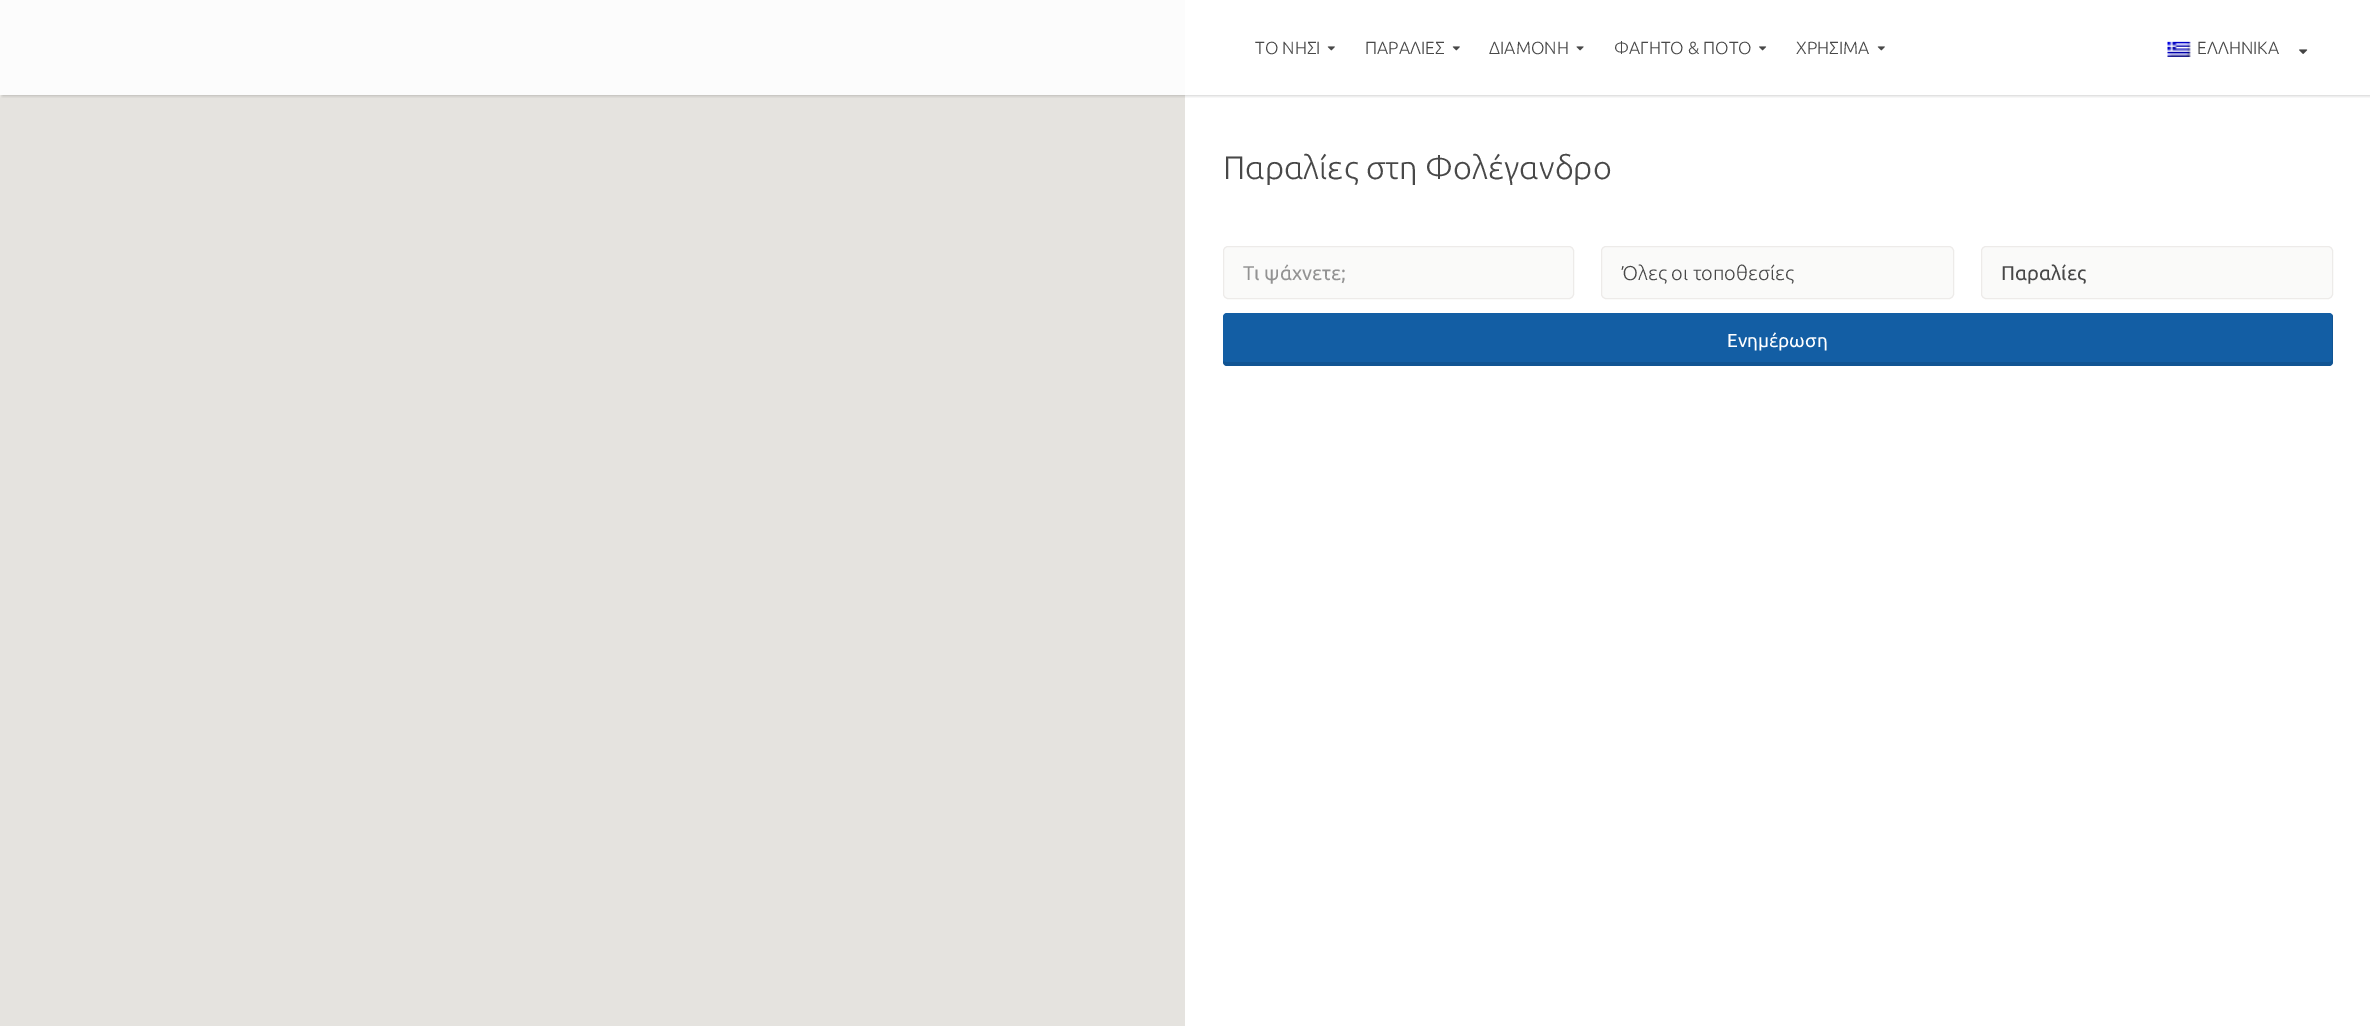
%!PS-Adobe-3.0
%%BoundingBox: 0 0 2370 1026
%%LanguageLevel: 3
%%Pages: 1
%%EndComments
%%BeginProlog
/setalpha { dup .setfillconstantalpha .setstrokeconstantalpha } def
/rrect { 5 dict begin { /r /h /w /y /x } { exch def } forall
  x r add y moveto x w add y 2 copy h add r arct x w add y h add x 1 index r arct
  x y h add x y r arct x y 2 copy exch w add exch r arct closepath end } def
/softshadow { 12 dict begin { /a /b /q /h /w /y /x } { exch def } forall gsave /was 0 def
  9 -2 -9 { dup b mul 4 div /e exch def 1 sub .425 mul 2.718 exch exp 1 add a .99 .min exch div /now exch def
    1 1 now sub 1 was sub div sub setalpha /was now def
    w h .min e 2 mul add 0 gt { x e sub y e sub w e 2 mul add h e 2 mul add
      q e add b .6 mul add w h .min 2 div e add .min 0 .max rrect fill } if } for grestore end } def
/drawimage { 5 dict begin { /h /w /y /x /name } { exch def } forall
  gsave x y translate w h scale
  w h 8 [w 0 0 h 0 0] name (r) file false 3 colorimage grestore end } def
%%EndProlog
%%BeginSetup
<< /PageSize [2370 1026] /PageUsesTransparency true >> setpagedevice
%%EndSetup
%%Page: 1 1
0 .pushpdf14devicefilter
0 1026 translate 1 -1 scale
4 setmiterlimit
1 setgray
0 0 2370 1026 rectfill
0.898 0.89 0.875 setrgbcolor
0 95 1185 931 rectfill
0.988 setgray
0 0 1185 95 rectfill
gsave
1 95 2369 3 rectclip
0 setgray
3 0 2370 95 0 2 0.3 softshadow
grestore
(images/1.raw) 1327 46 8 5 drawimage
(images/1.raw) 1452 46 8 5 drawimage
(images/2.raw) 1576 46 8 5 drawimage
(images/3.raw) 1759 46 8 5 drawimage
(images/1.raw) 1877 46 8 5 drawimage
(images/4.raw) 2167 41 24 16 drawimage
(images/5.raw) 2299 49 9 5 drawimage
0.98 0.98 0.976 setrgbcolor
1223.5 246.5 350 52 4.5 rrect gsave fill grestore
0.929 0.922 0.914 setrgbcolor
stroke
0.98 0.98 0.976 setrgbcolor
1601.5 246.5 352 52 4.5 rrect gsave fill grestore
0.929 0.922 0.914 setrgbcolor
stroke
0.98 0.98 0.976 setrgbcolor
1981.5 246.5 351 52 4.5 rrect gsave fill grestore
0.929 0.922 0.914 setrgbcolor
stroke
0.075 0.369 0.643 setrgbcolor
1223 313 1110 53 4 rrect fill
0.1 setalpha
0 setgray
newpath 1223 361 moveto 1223 362 lineto 1223 364 1225 366 1227 366 curveto 2329 366 lineto 2331 366 2333 364 2333 362 curveto 2333 317 lineto 2333 316 2333 315 2332 314 curveto 2332 359 lineto 2332 361 2331 362 2329 362 curveto 1226 362 lineto 1225 362 1224 362 1223 361 curveto closepath fill
/Ubuntu-Light [17.5 0 0 -17.5 0 0] selectfont
1 setalpha
0.282 setgray
1255 54 moveto (ΤΟ ΝΗΣΙ) show
1365 54 moveto (ΠΑΡΑΛΙΕΣ) show
1489 54 moveto (ΔΙΑΜΟΝΗ) show
1614 54 moveto (ΦΑΓΗΤΟ & ΠΟΤΟ) show
1796 54 moveto (ΧΡΗΣΙΜΑ) show
2197 54 moveto (ΕΛΛΗΝΙΚΑ) show
/Ubuntu-Light [32.5 0 0 -32.5 0 0] selectfont
1223 179 moveto (Παραλίες στη Φολέγανδρο) show
/Ubuntu-Regular [20 0 0 -20 0 0] selectfont
0.576 setgray
1243 280 moveto (Τι ψάχνετε;) show
/Ubuntu-Light [20 0 0 -20 0 0] selectfont
0.282 setgray
1622 280 moveto (Όλες οι τοποθεσίες) show
/Ubuntu-Regular [20 0 0 -20 0 0] selectfont
2001 280 moveto (Παραλίες) show
/Ubuntu-Regular [18.75 0 0 -18.75 0 0] selectfont
1 setgray
1727 347 moveto (Ενημέρωση) show
.poppdf14devicefilter showpage
%%EOF
